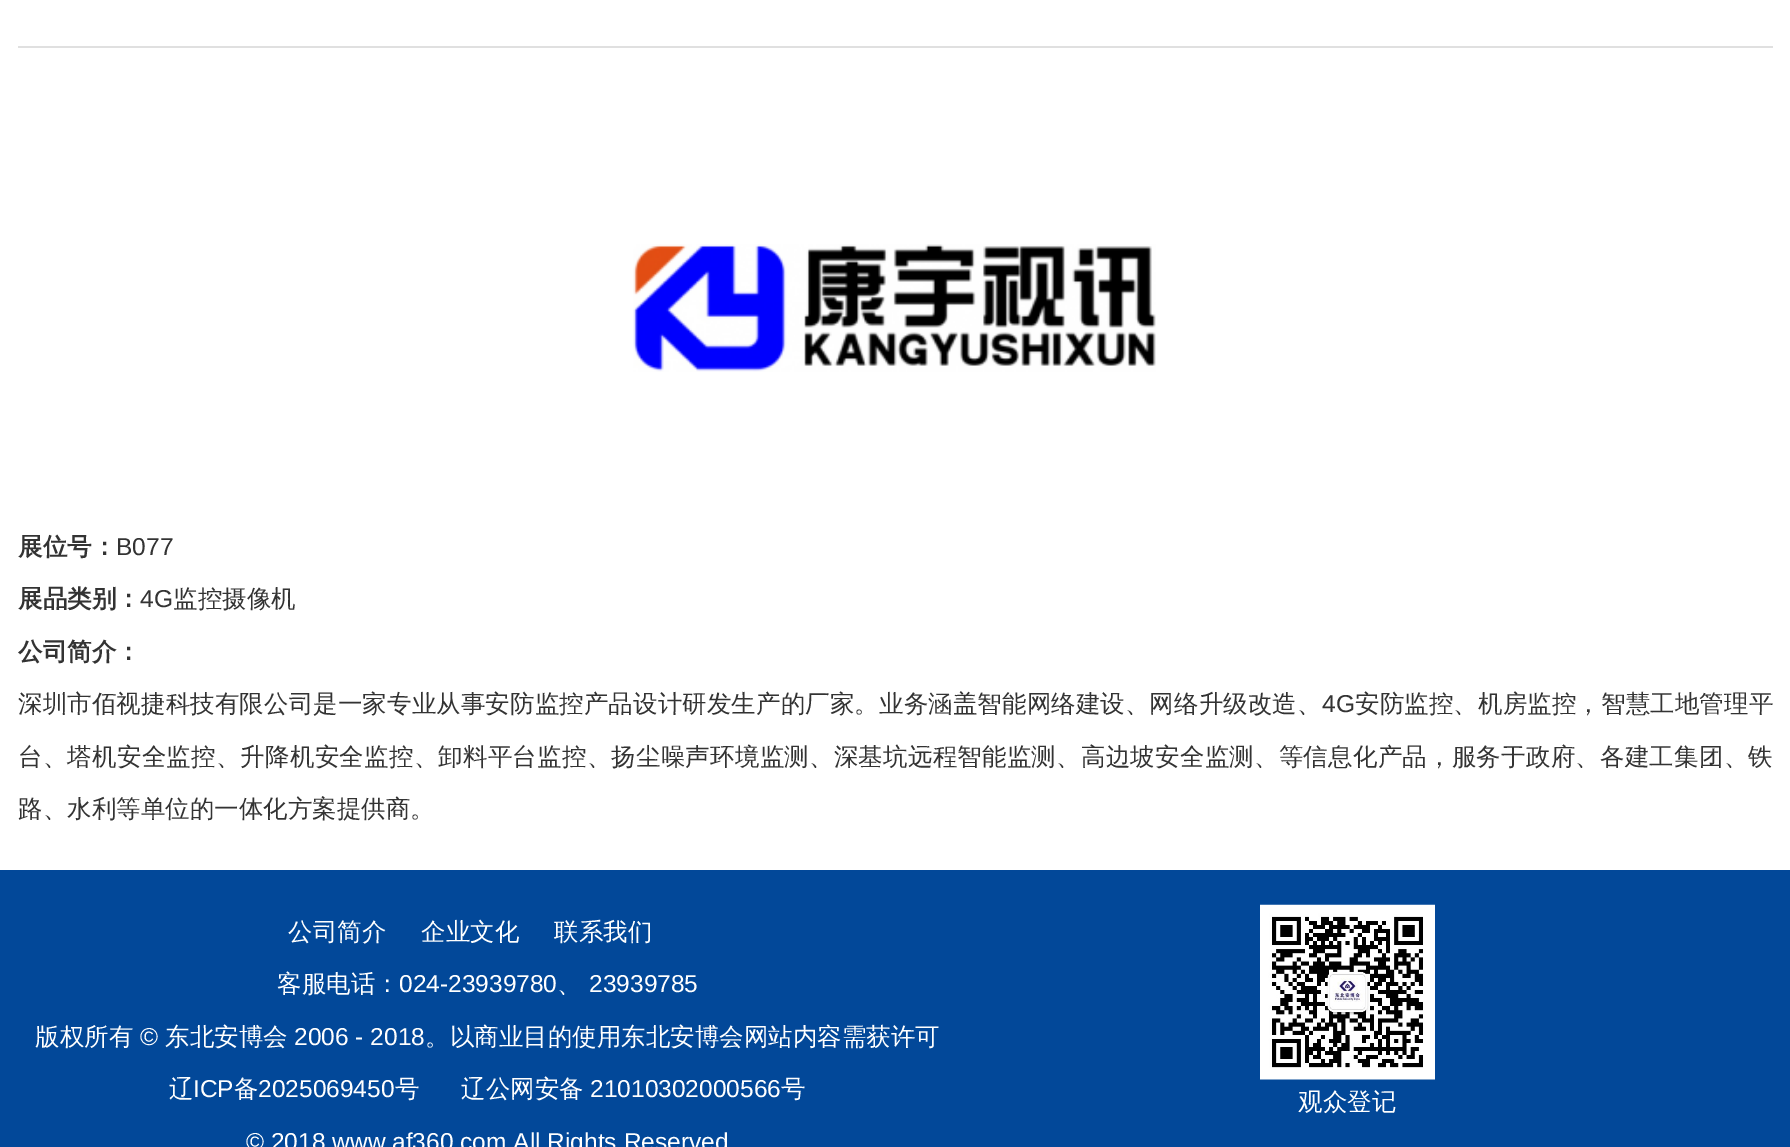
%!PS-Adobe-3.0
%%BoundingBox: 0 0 1790 1147
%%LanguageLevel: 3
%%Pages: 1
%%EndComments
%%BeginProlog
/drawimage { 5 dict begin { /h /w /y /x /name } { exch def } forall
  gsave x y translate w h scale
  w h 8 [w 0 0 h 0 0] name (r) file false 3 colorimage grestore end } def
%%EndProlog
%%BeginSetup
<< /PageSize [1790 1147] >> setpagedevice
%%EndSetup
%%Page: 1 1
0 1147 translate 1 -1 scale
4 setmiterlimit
1 setgray
0 0 1790 1147 rectfill
0.878 setgray
18 46 1755 2 rectfill
(images/1.raw) 633 244 523 128 drawimage
0.008 0.282 0.6 setrgbcolor
0 870 1790 277 rectfill
(images/2.raw) 1260 904 175 176 drawimage
/WenQuanYiZenHei-Bold [24.5 0 0 -24.5 0 0] selectfont
0.2 setgray
18 555 moveto (展位号：) show
/LiberationSans-Regular [24.5 0 0 -24.5 0 0] selectfont
116 555 moveto (B077) show
/WenQuanYiZenHei-Bold [24.5 0 0 -24.5 0 0] selectfont
18 607 moveto (展品类别：) show
/LiberationSans-Regular [24.5 0 0 -24.5 0 0] selectfont
140 607 moveto (4G) show
/WenQuanYiZenHei-Medium [24.5 0 0 -24.5 0 0] selectfont
173 607 moveto (监控摄像机) show
/WenQuanYiZenHei-Bold [24.5 0 0 -24.5 0 0] selectfont
18 660 moveto (公司简介：) show
/WenQuanYiZenHei-Medium [24.5 0 0 -24.5 0 0] selectfont
18 712 moveto 0.1 0 (深圳市佰视捷科技有限公司是一家专业从事安防监控产品设计研发生产的厂家。业务涵盖智能网络建设、网络升级改造、) ashow
/LiberationSans-Regular [24.5 0 0 -24.5 0 0] selectfont
1322 712 moveto 0.1 0 (4G) ashow
/WenQuanYiZenHei-Medium [24.5 0 0 -24.5 0 0] selectfont
1355 712 moveto 0.1 0 (安防监控、机房监控，智慧工地管理平) ashow
18 765 moveto 0.22 0 (台、塔机安全监控、升降机安全监控、卸料平台监控、扬尘噪声环境监测、深基坑远程智能监测、高边坡安全监测、等信息化产品，服务于政府、各建工集团、铁) ashow
18 817 moveto (路、水利等单位的一体化方案提供商。) show
1 setgray
288 940 moveto (公司简介) show
421 940 moveto (企业文化) show
554 940 moveto (联系我们) show
277 992 moveto (客服电话：) show
/LiberationSans-Regular [24.5 0 0 -24.5 0 0] selectfont
399 992 moveto (024-23939780) show
/WenQuanYiZenHei-Medium [24.5 0 0 -24.5 0 0] selectfont
557 992 moveto (、) show
/LiberationSans-Regular [24.5 0 0 -24.5 0 0] selectfont
589 992 moveto (23939785) show
/WenQuanYiZenHei-Medium [24.5 0 0 -24.5 0 0] selectfont
35 1045 moveto (版权所有) show
/LiberationSans-Regular [24.5 0 0 -24.5 0 0] selectfont
140 1045 moveto (©) show
/WenQuanYiZenHei-Medium [24.5 0 0 -24.5 0 0] selectfont
165 1045 moveto (东北安博会) show
/LiberationSans-Regular [24.5 0 0 -24.5 0 0] selectfont
294 1045 moveto (2006 - 2018) show
/WenQuanYiZenHei-Medium [24.5 0 0 -24.5 0 0] selectfont
425 1045 moveto (。以商业目的使用东北安博会网站内容需获许可) show
169 1097 moveto (辽) show
/LiberationSans-Regular [24.5 0 0 -24.5 0 0] selectfont
193 1097 moveto (ICP) show
/WenQuanYiZenHei-Medium [24.5 0 0 -24.5 0 0] selectfont
234 1097 moveto (备) show
/LiberationSans-Regular [24.5 0 0 -24.5 0 0] selectfont
258 1097 moveto (2025069450) show
/WenQuanYiZenHei-Medium [24.5 0 0 -24.5 0 0] selectfont
395 1097 moveto (号) show
461 1097 moveto (辽公网安备) show
/LiberationSans-Regular [24.5 0 0 -24.5 0 0] selectfont
590 1097 moveto (21010302000566) show
/WenQuanYiZenHei-Medium [24.5 0 0 -24.5 0 0] selectfont
781 1097 moveto (号) show
/LiberationSans-Regular [24.5 0 0 -24.5 0 0] selectfont
246 1150 moveto (© 2018 www.af360.com All Rights Reserved) show
/WenQuanYiZenHei-Medium [24.5 0 0 -24.5 0 0] selectfont
1298 1110 moveto (观众登记) show
showpage
%%EOF
